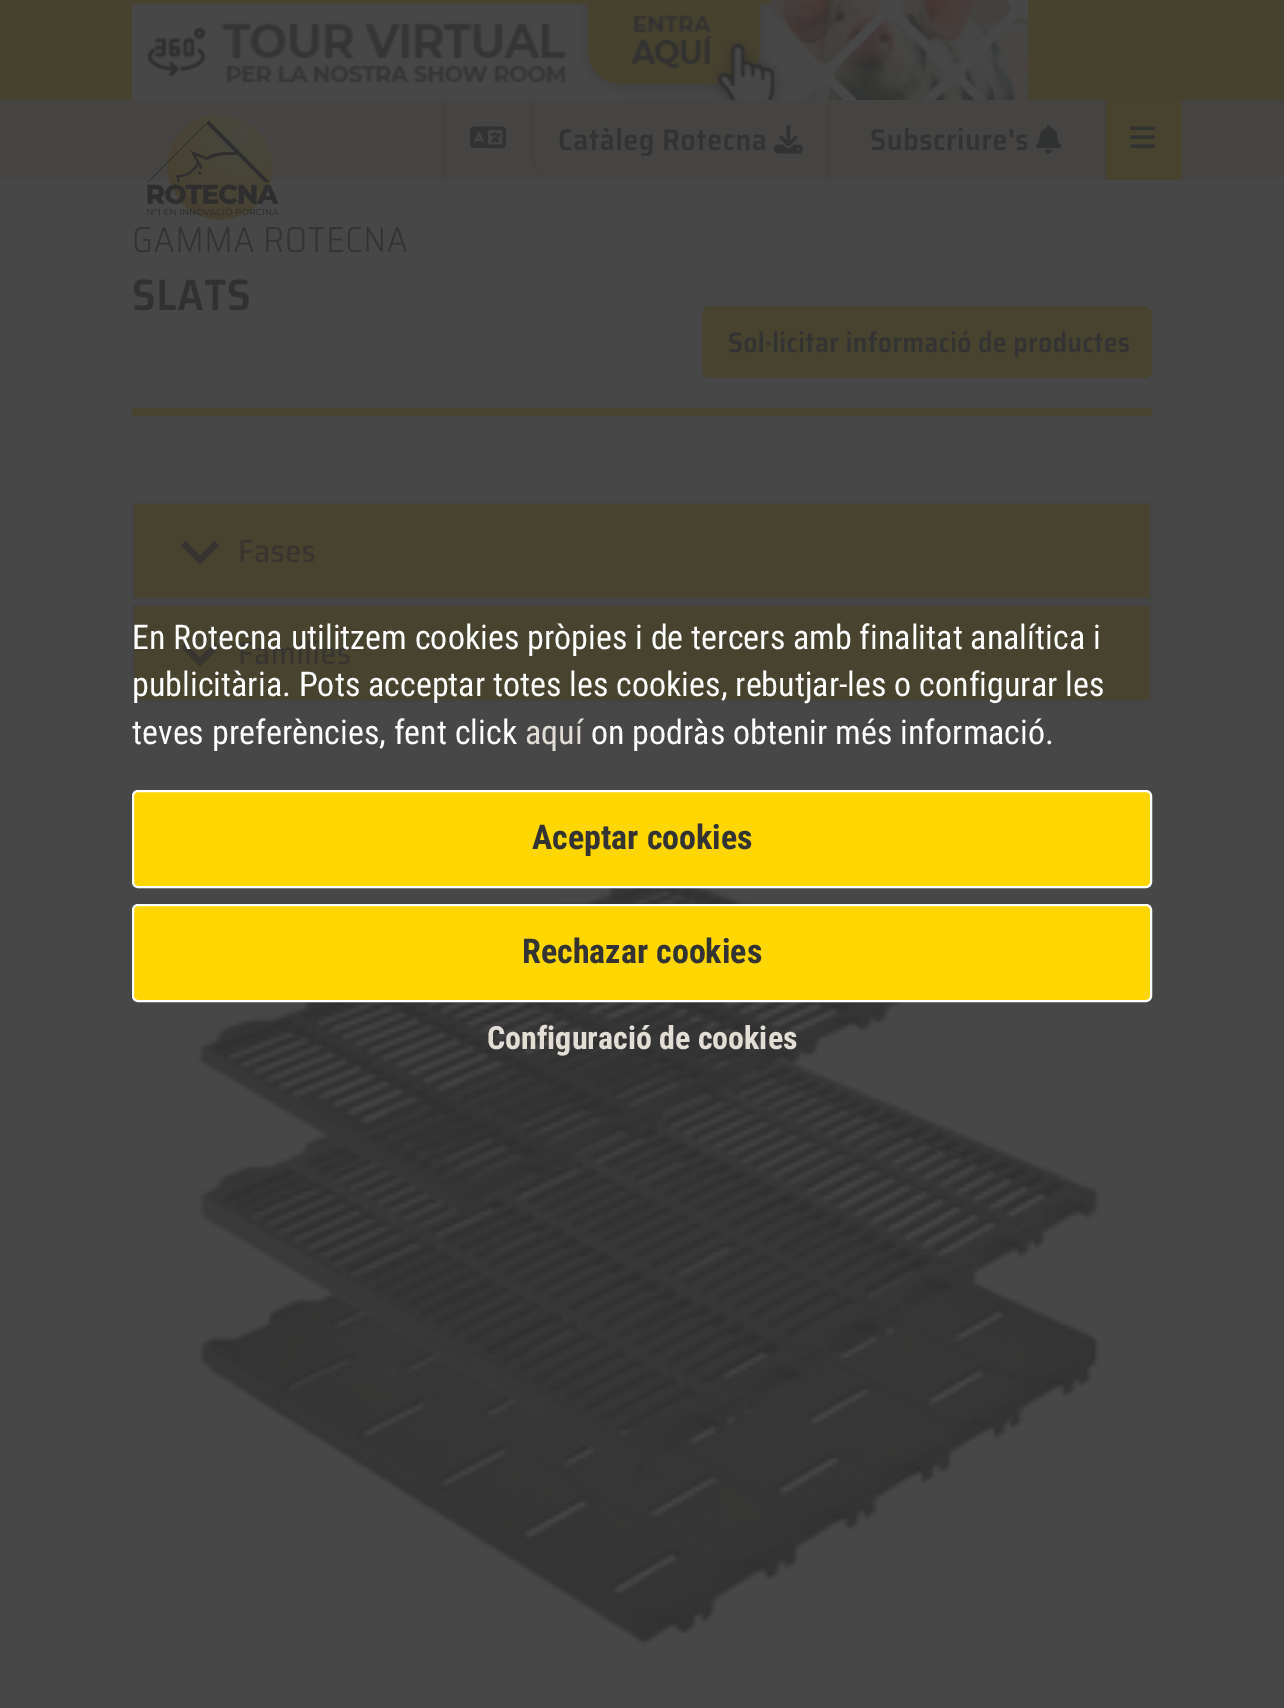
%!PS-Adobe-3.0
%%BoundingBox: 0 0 1284 1708
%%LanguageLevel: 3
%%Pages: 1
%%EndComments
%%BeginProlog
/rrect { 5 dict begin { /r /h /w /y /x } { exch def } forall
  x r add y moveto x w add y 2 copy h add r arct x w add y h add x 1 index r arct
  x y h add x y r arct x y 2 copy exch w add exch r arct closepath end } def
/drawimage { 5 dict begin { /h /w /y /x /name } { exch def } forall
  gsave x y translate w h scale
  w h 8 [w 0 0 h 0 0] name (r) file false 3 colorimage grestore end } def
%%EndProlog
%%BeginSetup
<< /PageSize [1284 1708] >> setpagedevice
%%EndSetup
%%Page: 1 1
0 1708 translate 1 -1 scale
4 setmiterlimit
0.278 setgray
0 0 1284 1708 rectfill
0.278 0.259 0.18 setrgbcolor
0 0 1284 100 rectfill
(images/1.raw) 132 0 896 100 drawimage
0.271 0.267 0.263 setrgbcolor
0 100 1284 80 rectfill
0.259 0.255 0.251 setrgbcolor
newpath 444 178 moveto 444 100 lineto 446 102 lineto 446 176 lineto closepath fill
(images/2.raw) 470 126 36 22 drawimage
newpath 534 102 moveto 532 100 lineto 532 156 lineto 532 162 535 168 539 173 curveto 540 172 lineto 536 168 534 162 534 156 curveto closepath fill
(images/3.raw) 559 127 206 30 drawimage
(images/4.raw) 774 124 29 30 drawimage
newpath 828 180 moveto 828 100 lineto 830 102 lineto 830 178 lineto closepath fill
(images/5.raw) 871 127 157 24 drawimage
(images/6.raw) 1036 124 26 30 drawimage
0.278 0.263 0.18 setrgbcolor
1104 100 78 80 rectfill
0.259 0.255 0.251 setrgbcolor
newpath 1104 180 moveto 1104 100 lineto 1106 102 lineto 1106 178 lineto closepath fill
(images/7.raw) 1130 126 26 22 drawimage
(images/8.raw) 147 114 132 106 drawimage
(images/9.raw) 134 226 273 27 drawimage
(images/10.raw) 133 279 116 32 drawimage
0.278 0.263 0.18 setrgbcolor
702 306 450 72 8 rrect fill
(images/11.raw) 729 331 401 27 drawimage
132 408 1020 8 rectfill
0.267 setgray
2 setlinewidth
133 503 1018 96 rectstroke
0.278 0.263 0.18 setrgbcolor
134 504 1016 94 rectfill
0.22 0.208 0.192 setrgbcolor
newpath 185.5 541 moveto 200 555.5 lineto 214.5 541 lineto 219 545.5 lineto 200 564.5 lineto 181 545.5 lineto closepath fill
(images/12.raw) 240 540 75 23 drawimage
0.267 setgray
133 605 1018 96 rectstroke
0.278 0.263 0.18 setrgbcolor
134 606 1016 94 rectfill
0.22 0.208 0.192 setrgbcolor
newpath 185.5 643 moveto 200 657.5 lineto 214.5 643 lineto 219 647.5 lineto 200 666.5 lineto 181 647.5 lineto closepath fill
(images/13.raw) 240 640 110 25 drawimage
(images/14.raw) 194 888 914 772 drawimage
1 0.839 0 setrgbcolor
133 791 1018 96 5 rrect gsave fill grestore
1 setgray
stroke
1 0.839 0 setrgbcolor
133 905 1018 96 5 rrect gsave fill grestore
1 setgray
stroke
/RobotoCondensed-Regular [34 0 0 -34 0 0] selectfont
132 649 moveto (En Rotecna utilitzem cookies pròpies i de tercers amb finalitat analítica i) show
132 696 moveto (publicitària. Pots acceptar totes les cookies, rebutjar-les o configurar les) show
132 744 moveto (teves preferències, fent click) show
0.886 0.867 0.835 setrgbcolor
525 744 moveto (aquí) show
1 setgray
591 744 moveto (on podràs obtenir més informació.) show
/RobotoCondensed-Bold [34 0 0 -34 0 0] selectfont
0.2 setgray
532 849 moveto (Aceptar cookies) show
522 963 moveto (Rechazar cookies) show
/RobotoCondensed-Bold [32 0 0 -32 0 0] selectfont
0.886 0.867 0.835 setrgbcolor
487 1049 moveto (Configuració de cookies) show
showpage
%%EOF
